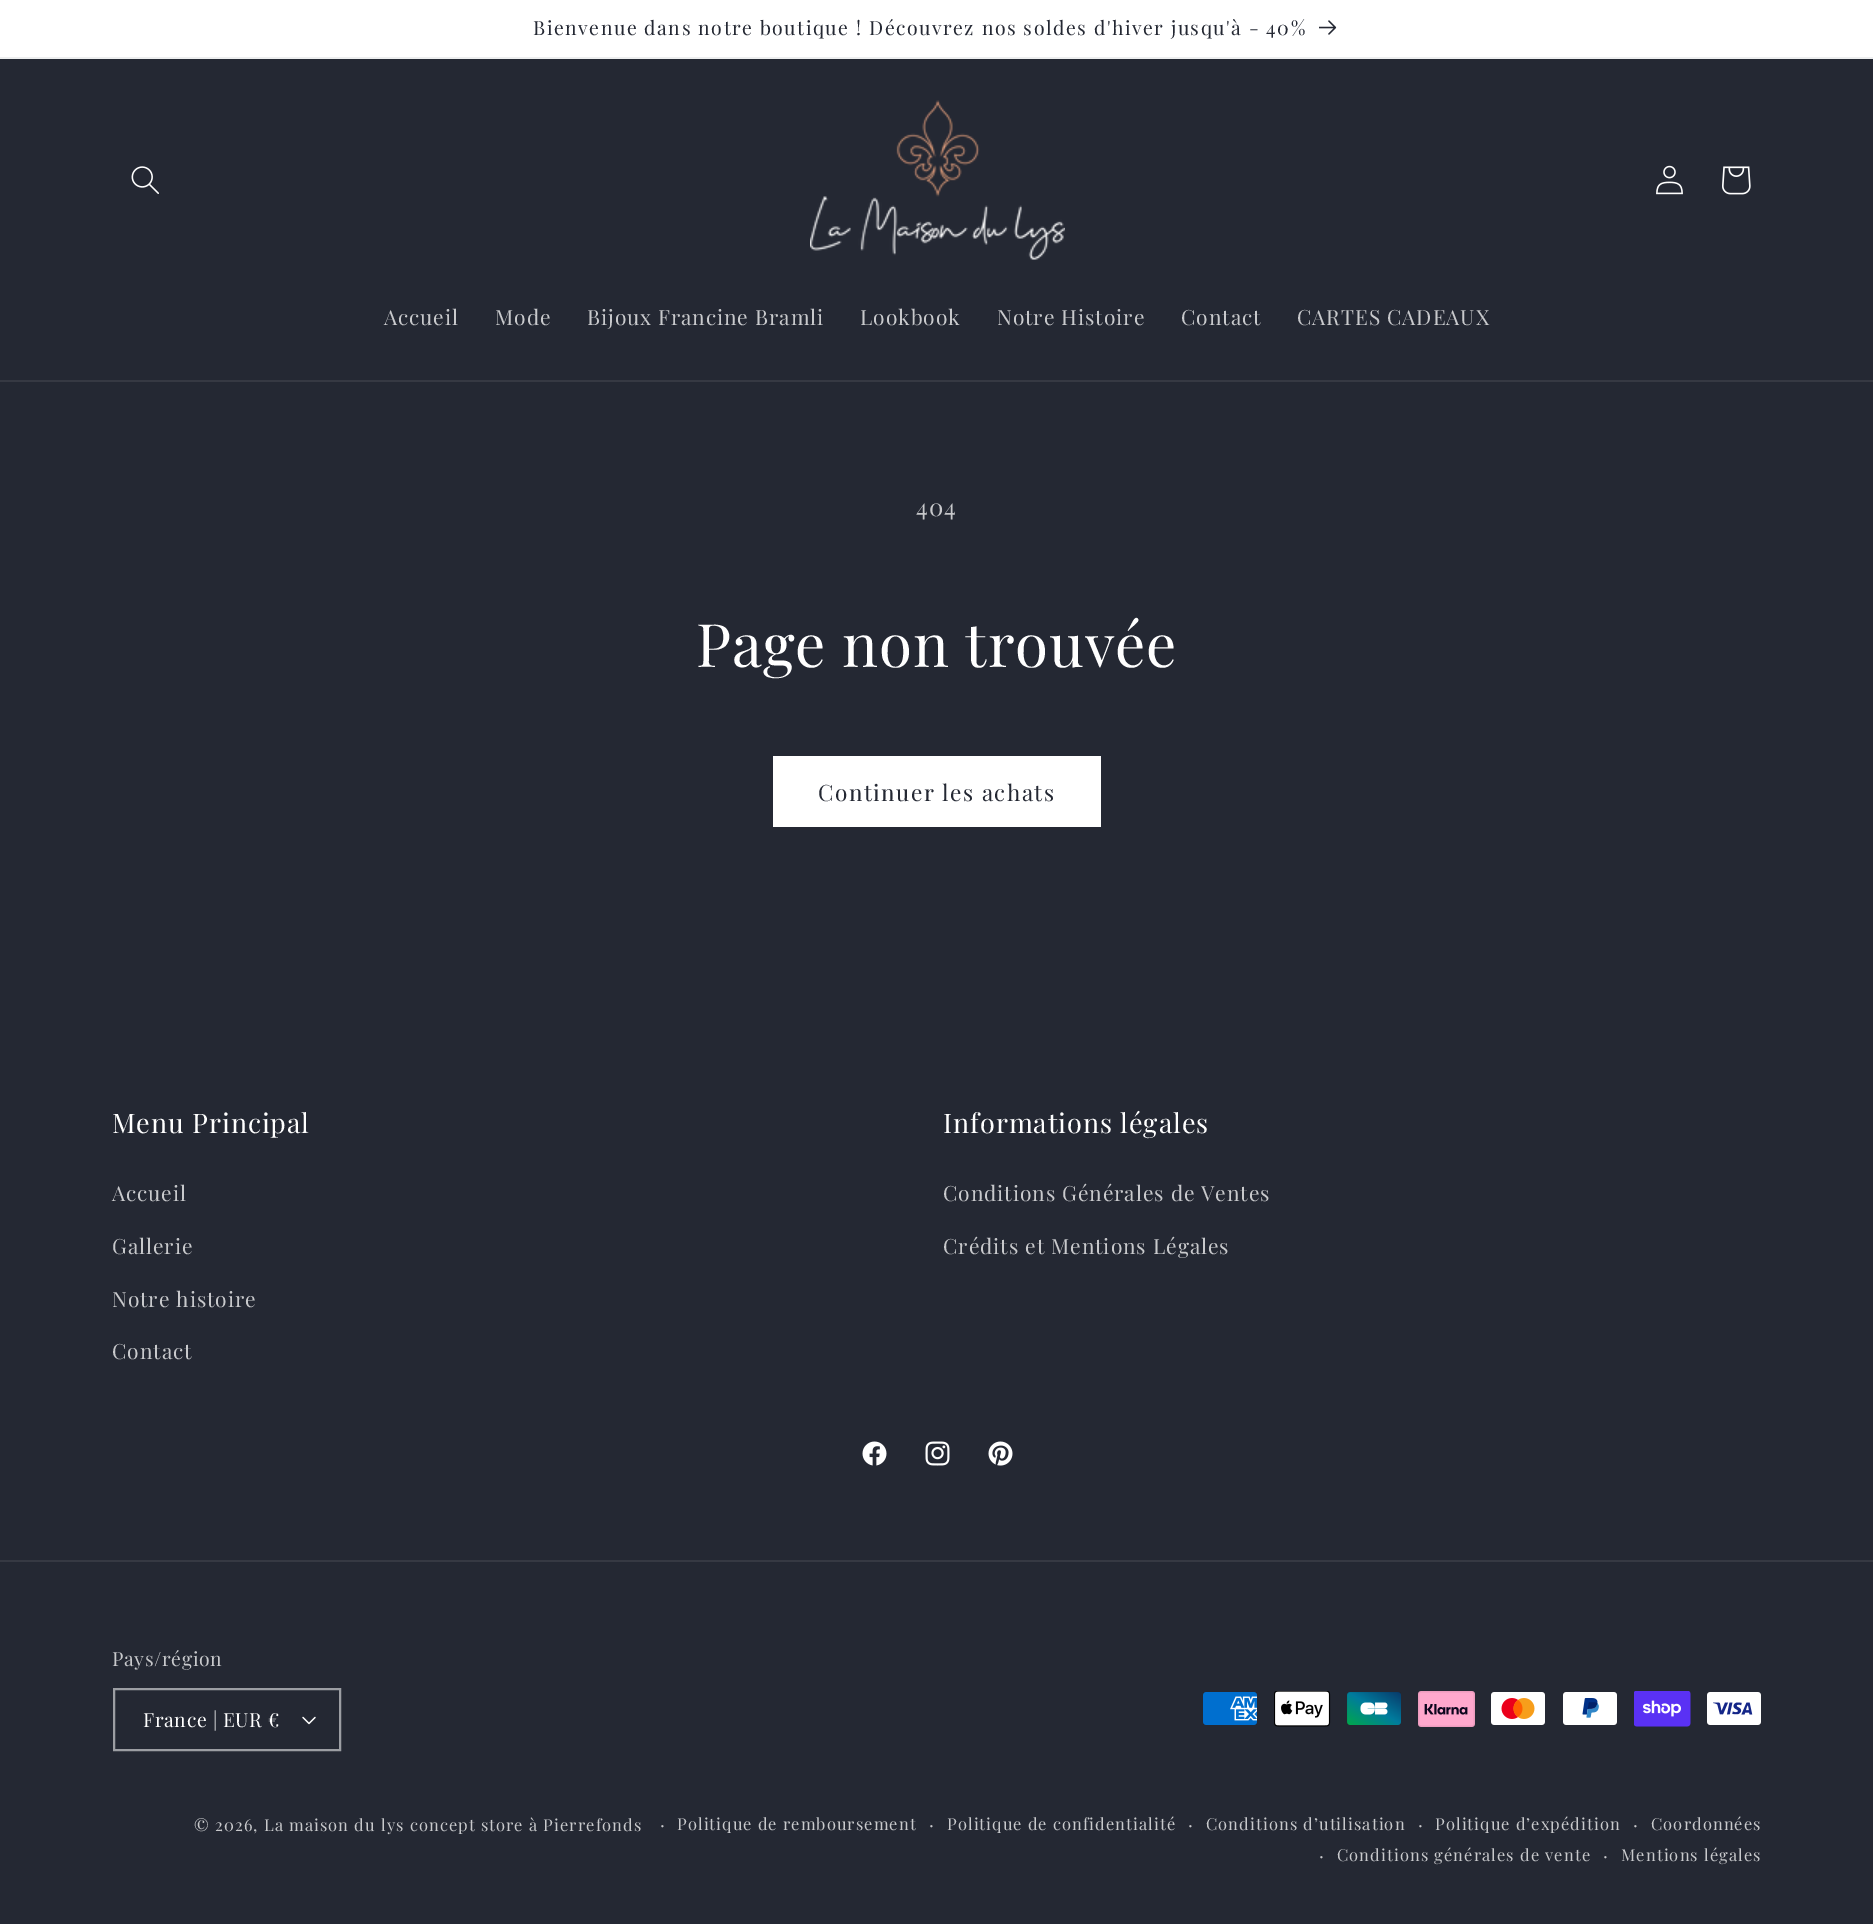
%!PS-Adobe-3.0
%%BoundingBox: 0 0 1873 1924
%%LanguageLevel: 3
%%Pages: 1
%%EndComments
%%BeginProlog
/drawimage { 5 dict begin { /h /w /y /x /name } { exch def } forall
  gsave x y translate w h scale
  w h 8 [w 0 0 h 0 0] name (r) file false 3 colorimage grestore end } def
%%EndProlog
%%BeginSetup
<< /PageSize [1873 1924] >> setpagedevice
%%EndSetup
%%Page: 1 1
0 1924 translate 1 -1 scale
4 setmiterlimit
0.141 0.157 0.2 setrgbcolor
0 0 1873 1924 rectfill
1 setgray
0 0 1873 57 rectfill
0.929 0.933 0.937 setrgbcolor
0 57 1873 2 rectfill
(images/1.raw) 1319 20 18 15 drawimage
0.212 0.224 0.263 setrgbcolor
0 380 1873 2 rectfill
(images/2.raw) 131 166 28 28 drawimage
(images/3.raw) 810 100 255 160 drawimage
(images/4.raw) 1656 165 27 30 drawimage
(images/5.raw) 1722 166 29 29 drawimage
1 setgray
773 756 328 71 rectfill
(images/6.raw) 862 1441 25 25 drawimage
(images/7.raw) 925 1441 25 25 drawimage
(images/8.raw) 988 1441 25 25 drawimage
0.212 0.224 0.263 setrgbcolor
0 1560 1873 2 rectfill
(images/9.raw) 302 1716 14 9 drawimage
0.612 0.62 0.639 setrgbcolor
2 setlinewidth
114 1689 226 61 rectstroke
(images/10.raw) 1203 1692 54 33 drawimage
(images/11.raw) 1274 1691 57 36 drawimage
(images/12.raw) 1347 1692 54 33 drawimage
(images/13.raw) 1418 1691 57 36 drawimage
(images/14.raw) 1491 1692 54 33 drawimage
(images/15.raw) 1563 1692 54 33 drawimage
(images/16.raw) 1634 1691 57 36 drawimage
(images/17.raw) 1707 1692 54 33 drawimage
/PlayfairDisplay-Regular [19.5 0 0 -19.5 0 0] selectfont
0.141 0.157 0.2 setrgbcolor
533 35 moveto 1.5 0 (Bienvenue dans notre boutique ! Découvrez nos soldes d'hiver jusqu'à - 40%) ashow
/PlayfairDisplay-Regular [21 0 0 -21 0 0] selectfont
0.784 0.788 0.8 setrgbcolor
384 325 moveto 0.9 0 (Accueil) ashow
495 325 moveto 0.9 0 (Mode) ashow
587 325 moveto 0.9 0 (Bijoux Francine Bramli) ashow
860 325 moveto 0.9 0 (Lookbook) ashow
997 325 moveto 0.9 0 (Notre Histoire) ashow
1181 325 moveto 0.9 0 (Contact) ashow
1297 325 moveto 0.9 0 (CARTES CADEAUX) ashow
/PlayfairDisplay-Regular [24 0 0 -24 0 0] selectfont
916 516 moveto 0.9 0 (404) ashow
/PlayfairDisplay-Regular [60 0 0 -60 0 0] selectfont
1 setgray
696 667 moveto 0.9 0 (Page non trouvée) ashow
/PlayfairDisplay-Regular [22.5 0 0 -22.5 0 0] selectfont
0.141 0.157 0.2 setrgbcolor
818 801 moveto 1.5 0 (Continuer les achats) ashow
/PlayfairDisplay-Regular [27 0 0 -27 0 0] selectfont
1 setgray
112 1133 moveto 0.9 0 (Menu Principal) ashow
/PlayfairDisplay-Regular [21 0 0 -21 0 0] selectfont
0.784 0.788 0.8 setrgbcolor
112 1201 moveto 0.9 0 (Accueil) ashow
112 1254 moveto 0.9 0 (Gallerie) ashow
112 1307 moveto 0.9 0 (Notre histoire) ashow
112 1359 moveto 0.9 0 (Contact) ashow
/PlayfairDisplay-Regular [27 0 0 -27 0 0] selectfont
1 setgray
943 1133 moveto 0.9 0 (Informations légales) ashow
/PlayfairDisplay-Regular [21 0 0 -21 0 0] selectfont
0.784 0.788 0.8 setrgbcolor
943 1201 moveto 0.9 0 (Conditions Générales de Ventes) ashow
943 1254 moveto 0.9 0 (Crédits et Mentions Légales) ashow
/PlayfairDisplay-Regular [19.5 0 0 -19.5 0 0] selectfont
112 1666 moveto 0.6 0 (Pays/région) ashow
1 setgray
143 1727 moveto 0.6 0 (France | EUR €) ashow
/PlayfairDisplay-Regular [16.5 0 0 -16.5 0 0] selectfont
0.784 0.788 0.8 setrgbcolor
194 1831 moveto 1.05 0 (© 2026, La maison du lys concept store) ashow
529 1831 moveto 1.05 0 (à Pierrefonds) ashow
/PlayfairDisplay-Regular [18 0 0 -18 0 0] selectfont
660 1831 moveto 1.05 0 (·) ashow
/PlayfairDisplay-Regular [16.5 0 0 -16.5 0 0] selectfont
677 1830 moveto 1.05 0 (Politique de remboursement) ashow
/PlayfairDisplay-Regular [18 0 0 -18 0 0] selectfont
929 1831 moveto 1.05 0 (·) ashow
/PlayfairDisplay-Regular [16.5 0 0 -16.5 0 0] selectfont
947 1830 moveto 1.05 0 (Politique de confidentialité) ashow
/PlayfairDisplay-Regular [18 0 0 -18 0 0] selectfont
1188 1831 moveto 1.05 0 (·) ashow
/PlayfairDisplay-Regular [16.5 0 0 -16.5 0 0] selectfont
1206 1830 moveto 1.05 0 (Conditions d’utilisation) ashow
/PlayfairDisplay-Regular [18 0 0 -18 0 0] selectfont
1418 1831 moveto 1.05 0 (·) ashow
/PlayfairDisplay-Regular [16.5 0 0 -16.5 0 0] selectfont
1435 1830 moveto 1.05 0 (Politique d’expédition) ashow
/PlayfairDisplay-Regular [18 0 0 -18 0 0] selectfont
1633 1831 moveto 1.05 0 (·) ashow
/PlayfairDisplay-Regular [16.5 0 0 -16.5 0 0] selectfont
1651 1830 moveto 1.05 0 (Coordonnées) ashow
/PlayfairDisplay-Regular [18 0 0 -18 0 0] selectfont
1319 1862 moveto 1.05 0 (·) ashow
/PlayfairDisplay-Regular [16.5 0 0 -16.5 0 0] selectfont
1337 1861 moveto 1.05 0 (Conditions générales de vente) ashow
/PlayfairDisplay-Regular [18 0 0 -18 0 0] selectfont
1603 1862 moveto 1.05 0 (·) ashow
/PlayfairDisplay-Regular [16.5 0 0 -16.5 0 0] selectfont
1621 1861 moveto 1.05 0 (Mentions légales) ashow
showpage
%%EOF
